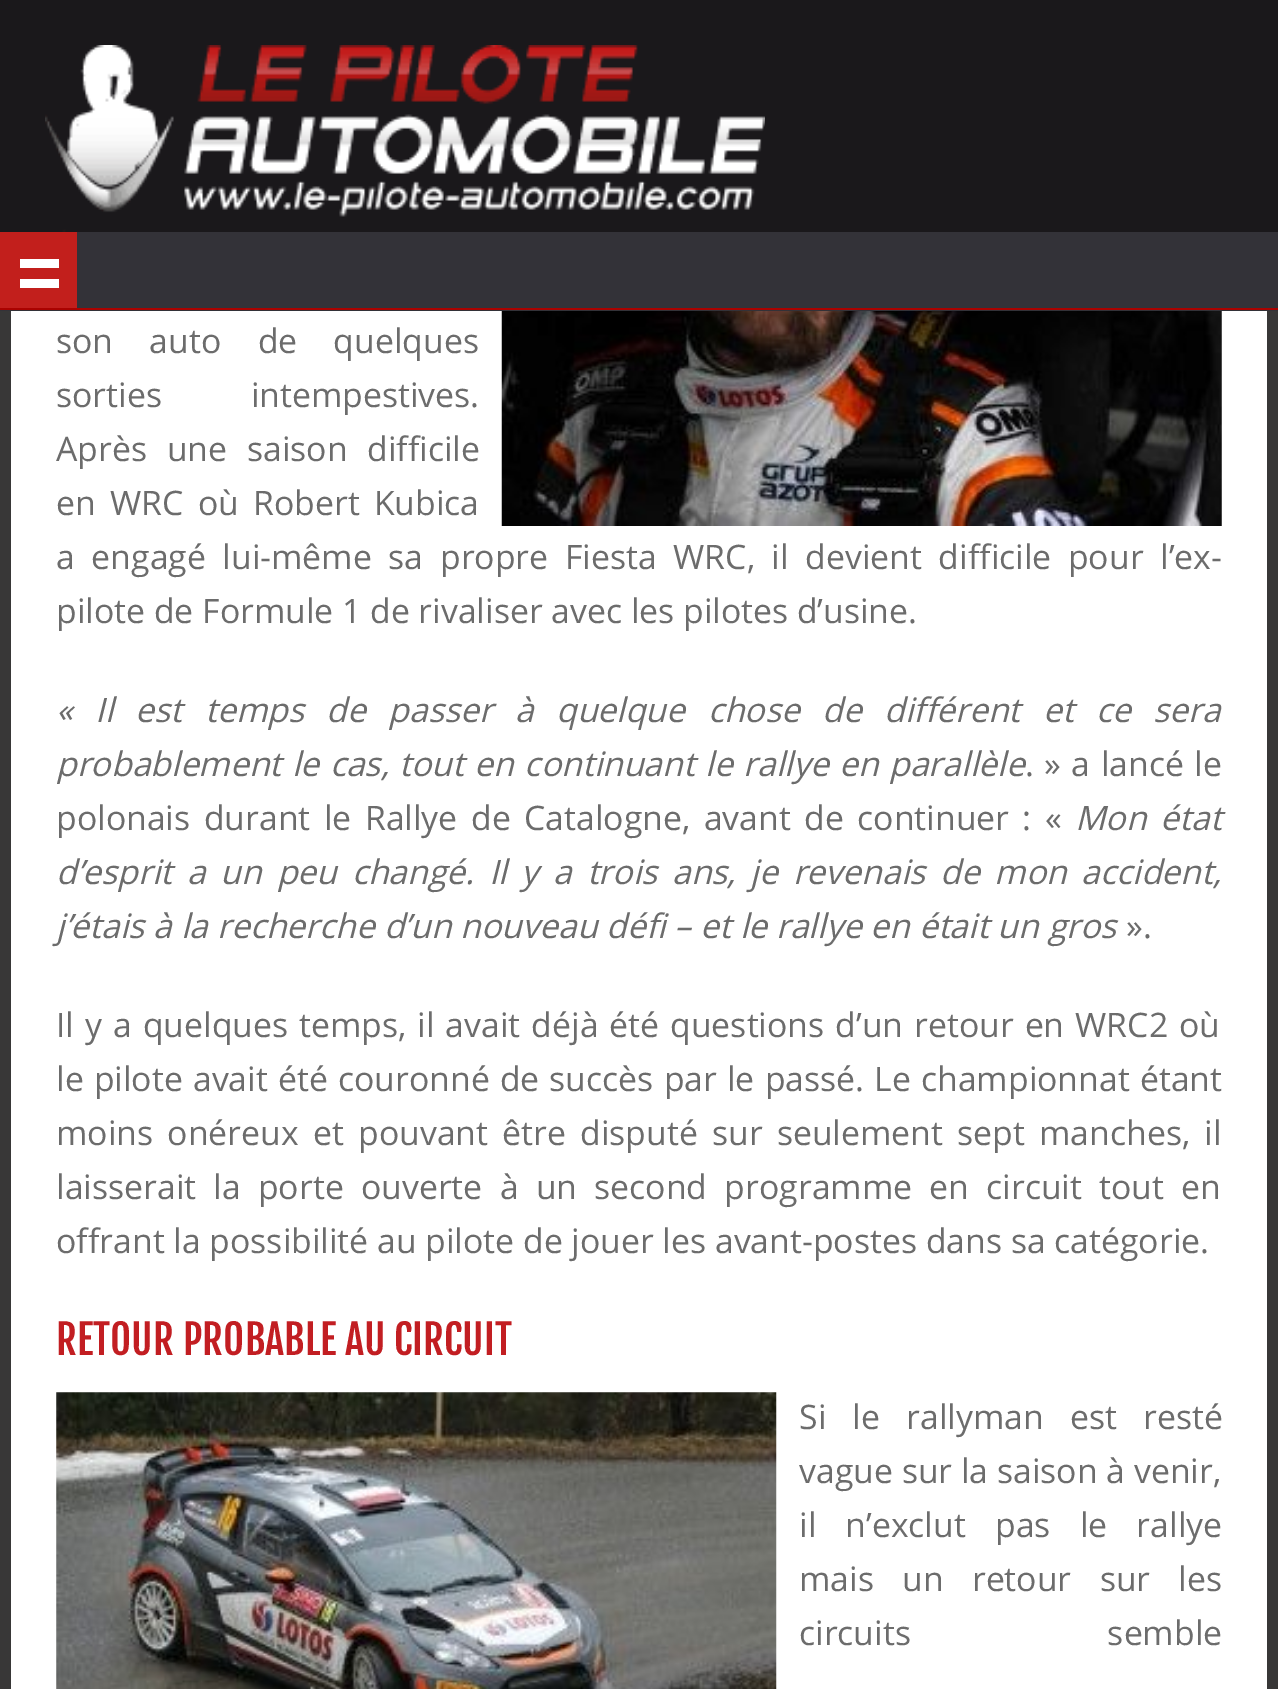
%!PS-Adobe-3.0
%%BoundingBox: 0 0 1278 1689
%%LanguageLevel: 3
%%Pages: 1
%%EndComments
%%BeginProlog
/drawimage { 5 dict begin { /h /w /y /x /name } { exch def } forall
  gsave x y translate w h scale
  w h 8 [w 0 0 h 0 0] name (r) file false 3 colorimage grestore end } def
%%EndProlog
%%BeginSetup
<< /PageSize [1278 1689] >> setpagedevice
%%EndSetup
%%Page: 1 1
0 1689 translate 1 -1 scale
4 setmiterlimit
0.22 0.216 0.216 setrgbcolor
0 0 1278 1689 rectfill
0.102 0.094 0.106 setrgbcolor
0 0 1278 232 rectfill
(images/1.raw) 45 45 720 187 drawimage
0.2 0.196 0.22 setrgbcolor
0 232 1278 79 rectfill
0.667 0.008 0 setrgbcolor
0 308 1278 2 rectfill
0.761 0.122 0.11 setrgbcolor
0 232 77 76 rectfill
1 setgray
20 259 39 9 rectfill
20 279 39 9 rectfill
11 311 1256 1378 rectfill
(images/2.raw) 501 311 721 215 drawimage
(images/3.raw) 56 1392 721 297 drawimage
/OpenSans-Regular [33.75 0 0 -33.75 0 0] selectfont
0.424 setgray
56 353 moveto 27.5 0 32 (son auto de quelques) widthshow
56 407 moveto 80 0 32 (sorties intempestives.) widthshow
56 461 moveto 11 0 32 (Après une saison difficile) widthshow
56 515 moveto 5.5 0 32 (en WRC où Robert Kubica) widthshow
56 569 moveto 7.9 0 32 (a engagé lui-même sa propre Fiesta WRC, il devient difficile pour l’ex-) widthshow
56 623 moveto (pilote de Formule 1 de rivaliser avec les pilotes d’usine.) show
/OpenSans-Italic [33.75 0 0 -33.75 0 0] selectfont
56 722 moveto 13.6 0 32 (« Il est temps de passer à quelque chose de différent et ce sera) widthshow
56 776 moveto 1.6 0 32 (probablement le cas, tout en continuant le rallye en parallèle) widthshow
/OpenSans-Regular [33.75 0 0 -33.75 0 0] selectfont
1025 776 moveto 1.6 0 32 (. » a lancé le) widthshow
56 830 moveto 4.75 0 32 (polonais durant le Rallye de Catalogne, avant de continuer : «) widthshow
/OpenSans-Italic [33.75 0 0 -33.75 0 0] selectfont
1075 830 moveto 4.75 0 32 (Mon état) widthshow
56 884 moveto 5.9 0 32 (d’esprit a un peu changé. Il y a trois ans, je revenais de mon accident,) widthshow
56 938 moveto (j’étais à la recherche d’un nouveau défi – et le rallye en était un gros) show
/OpenSans-Regular [33.75 0 0 -33.75 0 0] selectfont
1126 938 moveto (».) show
56 1037 moveto 2.25 0 32 (Il y a quelques temps, il avait déjà été questions d’un retour en WRC2 où) widthshow
56 1091 moveto 1.4 0 32 (le pilote avait été couronné de succès par le passé. Le championnat étant) widthshow
56 1145 moveto 5.5 0 32 (moins onéreux et pouvant être disputé sur seulement sept manches, il) widthshow
56 1199 moveto 8.5 0 32 (laisserait la porte ouverte à un second programme en circuit tout en) widthshow
56 1253 moveto (offrant la possibilité au pilote de jouer les avant-postes dans sa catégorie.) show
/FjallaOne-Regular [40.5 0 0 -40.5 0 0] selectfont
0.761 0.118 0.133 setrgbcolor
56 1355 moveto (RETOUR PROBABLE AU CIRCUIT) show
/OpenSans-Regular [33.75 0 0 -33.75 0 0] selectfont
0.424 setgray
799 1429 moveto 17.5 0 32 (Si le rallyman est resté) widthshow
799 1483 moveto (vague sur la saison à venir,) show
799 1537 moveto 20.5 0 32 (il n’exclut pas le rallye) widthshow
799 1591 moveto 19.5 0 32 (mais un retour sur les) widthshow
799 1645 moveto 188 0 32 (circuits semble) widthshow
showpage
%%EOF
